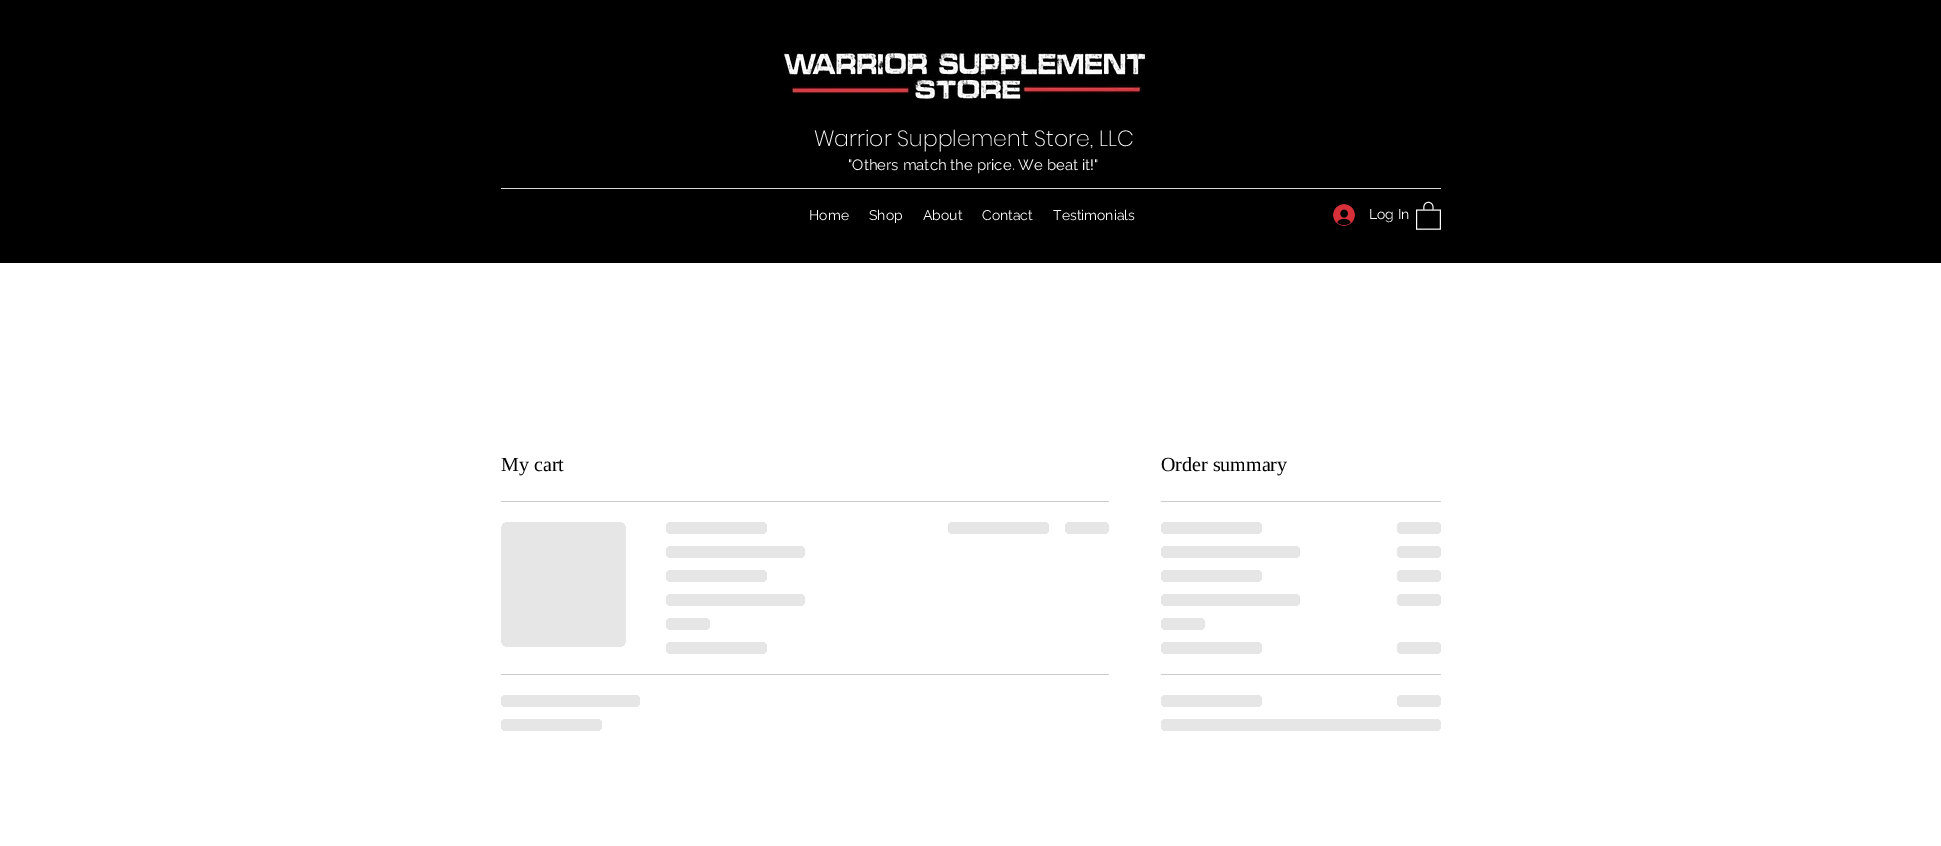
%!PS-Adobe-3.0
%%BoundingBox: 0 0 1941 846
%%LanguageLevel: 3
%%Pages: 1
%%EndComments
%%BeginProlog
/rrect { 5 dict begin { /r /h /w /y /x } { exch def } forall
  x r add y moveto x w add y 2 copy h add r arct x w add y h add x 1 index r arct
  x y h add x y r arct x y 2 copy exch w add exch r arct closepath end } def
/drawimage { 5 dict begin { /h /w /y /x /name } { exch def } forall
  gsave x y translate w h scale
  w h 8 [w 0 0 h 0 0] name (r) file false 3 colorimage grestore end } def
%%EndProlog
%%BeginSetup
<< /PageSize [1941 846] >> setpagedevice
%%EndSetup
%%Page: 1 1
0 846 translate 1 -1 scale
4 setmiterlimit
1 setgray
0 0 1941 846 rectfill
0 setgray
0 0 1941 263 rectfill
(images/1.raw) 782 50 364 52 drawimage
0.851 setgray
501 188 940 1 rectfill
(images/2.raw) 1333 204 22 22 drawimage
(images/3.raw) 1416 201 25 29 drawimage
0.8 setgray
501 501 608 1 rectfill
gsave 501 522 125 125 8 rrect clip newpath
<< /ShadingType 2 /ColorSpace /DeviceRGB /Coords [501 585 1001 585] /Extend [true true] /Function << /FunctionType 3 /Domain [0 1] /Functions [<< /FunctionType 2 /Domain [0 1] /C0 [0.902 0.902 0.902] /C1 [0.902 0.902 0.902] /N 1 >> << /FunctionType 2 /Domain [0 1] /C0 [0.902 0.902 0.902] /C1 [0.8 0.8 0.8] /N 1 >> << /FunctionType 2 /Domain [0 1] /C0 [0.8 0.8 0.8] /C1 [0.902 0.902 0.902] /N 1 >> << /FunctionType 2 /Domain [0 1] /C0 [0.902 0.902 0.902] /C1 [0.902 0.902 0.902] /N 1 >>] /Bounds [0.25 0.37 0.63] /Encode [0 1 0 1 0 1 0 1] >> >> shfill grestore
gsave 666 522 101 12 6 rrect clip newpath
<< /ShadingType 2 /ColorSpace /DeviceRGB /Coords [666 528 1070 528] /Extend [true true] /Function << /FunctionType 3 /Domain [0 1] /Functions [<< /FunctionType 2 /Domain [0 1] /C0 [0.902 0.902 0.902] /C1 [0.902 0.902 0.902] /N 1 >> << /FunctionType 2 /Domain [0 1] /C0 [0.902 0.902 0.902] /C1 [0.8 0.8 0.8] /N 1 >> << /FunctionType 2 /Domain [0 1] /C0 [0.8 0.8 0.8] /C1 [0.902 0.902 0.902] /N 1 >> << /FunctionType 2 /Domain [0 1] /C0 [0.902 0.902 0.902] /C1 [0.902 0.902 0.902] /N 1 >>] /Bounds [0.25 0.37 0.63] /Encode [0 1 0 1 0 1 0 1] >> >> shfill grestore
gsave 666 546 139 12 6 rrect clip newpath
<< /ShadingType 2 /ColorSpace /DeviceRGB /Coords [666 552 1222 552] /Extend [true true] /Function << /FunctionType 3 /Domain [0 1] /Functions [<< /FunctionType 2 /Domain [0 1] /C0 [0.902 0.902 0.902] /C1 [0.902 0.902 0.902] /N 1 >> << /FunctionType 2 /Domain [0 1] /C0 [0.902 0.902 0.902] /C1 [0.8 0.8 0.8] /N 1 >> << /FunctionType 2 /Domain [0 1] /C0 [0.8 0.8 0.8] /C1 [0.902 0.902 0.902] /N 1 >> << /FunctionType 2 /Domain [0 1] /C0 [0.902 0.902 0.902] /C1 [0.902 0.902 0.902] /N 1 >>] /Bounds [0.25 0.37 0.63] /Encode [0 1 0 1 0 1 0 1] >> >> shfill grestore
gsave 666 570 101 12 6 rrect clip newpath
<< /ShadingType 2 /ColorSpace /DeviceRGB /Coords [666 576 1070 576] /Extend [true true] /Function << /FunctionType 3 /Domain [0 1] /Functions [<< /FunctionType 2 /Domain [0 1] /C0 [0.902 0.902 0.902] /C1 [0.902 0.902 0.902] /N 1 >> << /FunctionType 2 /Domain [0 1] /C0 [0.902 0.902 0.902] /C1 [0.8 0.8 0.8] /N 1 >> << /FunctionType 2 /Domain [0 1] /C0 [0.8 0.8 0.8] /C1 [0.902 0.902 0.902] /N 1 >> << /FunctionType 2 /Domain [0 1] /C0 [0.902 0.902 0.902] /C1 [0.902 0.902 0.902] /N 1 >>] /Bounds [0.25 0.37 0.63] /Encode [0 1 0 1 0 1 0 1] >> >> shfill grestore
gsave 666 594 139 12 6 rrect clip newpath
<< /ShadingType 2 /ColorSpace /DeviceRGB /Coords [666 600 1222 600] /Extend [true true] /Function << /FunctionType 3 /Domain [0 1] /Functions [<< /FunctionType 2 /Domain [0 1] /C0 [0.902 0.902 0.902] /C1 [0.902 0.902 0.902] /N 1 >> << /FunctionType 2 /Domain [0 1] /C0 [0.902 0.902 0.902] /C1 [0.8 0.8 0.8] /N 1 >> << /FunctionType 2 /Domain [0 1] /C0 [0.8 0.8 0.8] /C1 [0.902 0.902 0.902] /N 1 >> << /FunctionType 2 /Domain [0 1] /C0 [0.902 0.902 0.902] /C1 [0.902 0.902 0.902] /N 1 >>] /Bounds [0.25 0.37 0.63] /Encode [0 1 0 1 0 1 0 1] >> >> shfill grestore
gsave 666 618 44 12 6 rrect clip newpath
<< /ShadingType 2 /ColorSpace /DeviceRGB /Coords [666 624 842 624] /Extend [true true] /Function << /FunctionType 3 /Domain [0 1] /Functions [<< /FunctionType 2 /Domain [0 1] /C0 [0.902 0.902 0.902] /C1 [0.902 0.902 0.902] /N 1 >> << /FunctionType 2 /Domain [0 1] /C0 [0.902 0.902 0.902] /C1 [0.8 0.8 0.8] /N 1 >> << /FunctionType 2 /Domain [0 1] /C0 [0.8 0.8 0.8] /C1 [0.902 0.902 0.902] /N 1 >> << /FunctionType 2 /Domain [0 1] /C0 [0.902 0.902 0.902] /C1 [0.902 0.902 0.902] /N 1 >>] /Bounds [0.25 0.37 0.63] /Encode [0 1 0 1 0 1 0 1] >> >> shfill grestore
gsave 666 642 101 12 6 rrect clip newpath
<< /ShadingType 2 /ColorSpace /DeviceRGB /Coords [666 648 1070 648] /Extend [true true] /Function << /FunctionType 3 /Domain [0 1] /Functions [<< /FunctionType 2 /Domain [0 1] /C0 [0.902 0.902 0.902] /C1 [0.902 0.902 0.902] /N 1 >> << /FunctionType 2 /Domain [0 1] /C0 [0.902 0.902 0.902] /C1 [0.8 0.8 0.8] /N 1 >> << /FunctionType 2 /Domain [0 1] /C0 [0.8 0.8 0.8] /C1 [0.902 0.902 0.902] /N 1 >> << /FunctionType 2 /Domain [0 1] /C0 [0.902 0.902 0.902] /C1 [0.902 0.902 0.902] /N 1 >>] /Bounds [0.25 0.37 0.63] /Encode [0 1 0 1 0 1 0 1] >> >> shfill grestore
gsave 948 522 101 12 6 rrect clip newpath
<< /ShadingType 2 /ColorSpace /DeviceRGB /Coords [948 528 1352 528] /Extend [true true] /Function << /FunctionType 3 /Domain [0 1] /Functions [<< /FunctionType 2 /Domain [0 1] /C0 [0.902 0.902 0.902] /C1 [0.902 0.902 0.902] /N 1 >> << /FunctionType 2 /Domain [0 1] /C0 [0.902 0.902 0.902] /C1 [0.8 0.8 0.8] /N 1 >> << /FunctionType 2 /Domain [0 1] /C0 [0.8 0.8 0.8] /C1 [0.902 0.902 0.902] /N 1 >> << /FunctionType 2 /Domain [0 1] /C0 [0.902 0.902 0.902] /C1 [0.902 0.902 0.902] /N 1 >>] /Bounds [0.25 0.37 0.63] /Encode [0 1 0 1 0 1 0 1] >> >> shfill grestore
gsave 1065 522 44 12 6 rrect clip newpath
<< /ShadingType 2 /ColorSpace /DeviceRGB /Coords [1065 528 1241 528] /Extend [true true] /Function << /FunctionType 3 /Domain [0 1] /Functions [<< /FunctionType 2 /Domain [0 1] /C0 [0.902 0.902 0.902] /C1 [0.902 0.902 0.902] /N 1 >> << /FunctionType 2 /Domain [0 1] /C0 [0.902 0.902 0.902] /C1 [0.8 0.8 0.8] /N 1 >> << /FunctionType 2 /Domain [0 1] /C0 [0.8 0.8 0.8] /C1 [0.902 0.902 0.902] /N 1 >> << /FunctionType 2 /Domain [0 1] /C0 [0.902 0.902 0.902] /C1 [0.902 0.902 0.902] /N 1 >>] /Bounds [0.25 0.37 0.63] /Encode [0 1 0 1 0 1 0 1] >> >> shfill grestore
501 674 608 1 rectfill
gsave 501 695 139 12 6 rrect clip newpath
<< /ShadingType 2 /ColorSpace /DeviceRGB /Coords [501 701 1057 701] /Extend [true true] /Function << /FunctionType 3 /Domain [0 1] /Functions [<< /FunctionType 2 /Domain [0 1] /C0 [0.902 0.902 0.902] /C1 [0.902 0.902 0.902] /N 1 >> << /FunctionType 2 /Domain [0 1] /C0 [0.902 0.902 0.902] /C1 [0.8 0.8 0.8] /N 1 >> << /FunctionType 2 /Domain [0 1] /C0 [0.8 0.8 0.8] /C1 [0.902 0.902 0.902] /N 1 >> << /FunctionType 2 /Domain [0 1] /C0 [0.902 0.902 0.902] /C1 [0.902 0.902 0.902] /N 1 >>] /Bounds [0.25 0.37 0.63] /Encode [0 1 0 1 0 1 0 1] >> >> shfill grestore
gsave 501 719 101 12 6 rrect clip newpath
<< /ShadingType 2 /ColorSpace /DeviceRGB /Coords [501 725 905 725] /Extend [true true] /Function << /FunctionType 3 /Domain [0 1] /Functions [<< /FunctionType 2 /Domain [0 1] /C0 [0.902 0.902 0.902] /C1 [0.902 0.902 0.902] /N 1 >> << /FunctionType 2 /Domain [0 1] /C0 [0.902 0.902 0.902] /C1 [0.8 0.8 0.8] /N 1 >> << /FunctionType 2 /Domain [0 1] /C0 [0.8 0.8 0.8] /C1 [0.902 0.902 0.902] /N 1 >> << /FunctionType 2 /Domain [0 1] /C0 [0.902 0.902 0.902] /C1 [0.902 0.902 0.902] /N 1 >>] /Bounds [0.25 0.37 0.63] /Encode [0 1 0 1 0 1 0 1] >> >> shfill grestore
1161 501 280 1 rectfill
gsave 1161 522 101 12 6 rrect clip newpath
<< /ShadingType 2 /ColorSpace /DeviceRGB /Coords [1161 528 1565 528] /Extend [true true] /Function << /FunctionType 3 /Domain [0 1] /Functions [<< /FunctionType 2 /Domain [0 1] /C0 [0.902 0.902 0.902] /C1 [0.902 0.902 0.902] /N 1 >> << /FunctionType 2 /Domain [0 1] /C0 [0.902 0.902 0.902] /C1 [0.8 0.8 0.8] /N 1 >> << /FunctionType 2 /Domain [0 1] /C0 [0.8 0.8 0.8] /C1 [0.902 0.902 0.902] /N 1 >> << /FunctionType 2 /Domain [0 1] /C0 [0.902 0.902 0.902] /C1 [0.902 0.902 0.902] /N 1 >>] /Bounds [0.25 0.37 0.63] /Encode [0 1 0 1 0 1 0 1] >> >> shfill grestore
gsave 1397 522 44 12 6 rrect clip newpath
<< /ShadingType 2 /ColorSpace /DeviceRGB /Coords [1397 528 1573 528] /Extend [true true] /Function << /FunctionType 3 /Domain [0 1] /Functions [<< /FunctionType 2 /Domain [0 1] /C0 [0.902 0.902 0.902] /C1 [0.902 0.902 0.902] /N 1 >> << /FunctionType 2 /Domain [0 1] /C0 [0.902 0.902 0.902] /C1 [0.8 0.8 0.8] /N 1 >> << /FunctionType 2 /Domain [0 1] /C0 [0.8 0.8 0.8] /C1 [0.902 0.902 0.902] /N 1 >> << /FunctionType 2 /Domain [0 1] /C0 [0.902 0.902 0.902] /C1 [0.902 0.902 0.902] /N 1 >>] /Bounds [0.25 0.37 0.63] /Encode [0 1 0 1 0 1 0 1] >> >> shfill grestore
gsave 1161 546 139 12 6 rrect clip newpath
<< /ShadingType 2 /ColorSpace /DeviceRGB /Coords [1161 552 1717 552] /Extend [true true] /Function << /FunctionType 3 /Domain [0 1] /Functions [<< /FunctionType 2 /Domain [0 1] /C0 [0.902 0.902 0.902] /C1 [0.902 0.902 0.902] /N 1 >> << /FunctionType 2 /Domain [0 1] /C0 [0.902 0.902 0.902] /C1 [0.8 0.8 0.8] /N 1 >> << /FunctionType 2 /Domain [0 1] /C0 [0.8 0.8 0.8] /C1 [0.902 0.902 0.902] /N 1 >> << /FunctionType 2 /Domain [0 1] /C0 [0.902 0.902 0.902] /C1 [0.902 0.902 0.902] /N 1 >>] /Bounds [0.25 0.37 0.63] /Encode [0 1 0 1 0 1 0 1] >> >> shfill grestore
gsave 1397 546 44 12 6 rrect clip newpath
<< /ShadingType 2 /ColorSpace /DeviceRGB /Coords [1397 552 1573 552] /Extend [true true] /Function << /FunctionType 3 /Domain [0 1] /Functions [<< /FunctionType 2 /Domain [0 1] /C0 [0.902 0.902 0.902] /C1 [0.902 0.902 0.902] /N 1 >> << /FunctionType 2 /Domain [0 1] /C0 [0.902 0.902 0.902] /C1 [0.8 0.8 0.8] /N 1 >> << /FunctionType 2 /Domain [0 1] /C0 [0.8 0.8 0.8] /C1 [0.902 0.902 0.902] /N 1 >> << /FunctionType 2 /Domain [0 1] /C0 [0.902 0.902 0.902] /C1 [0.902 0.902 0.902] /N 1 >>] /Bounds [0.25 0.37 0.63] /Encode [0 1 0 1 0 1 0 1] >> >> shfill grestore
gsave 1161 570 101 12 6 rrect clip newpath
<< /ShadingType 2 /ColorSpace /DeviceRGB /Coords [1161 576 1565 576] /Extend [true true] /Function << /FunctionType 3 /Domain [0 1] /Functions [<< /FunctionType 2 /Domain [0 1] /C0 [0.902 0.902 0.902] /C1 [0.902 0.902 0.902] /N 1 >> << /FunctionType 2 /Domain [0 1] /C0 [0.902 0.902 0.902] /C1 [0.8 0.8 0.8] /N 1 >> << /FunctionType 2 /Domain [0 1] /C0 [0.8 0.8 0.8] /C1 [0.902 0.902 0.902] /N 1 >> << /FunctionType 2 /Domain [0 1] /C0 [0.902 0.902 0.902] /C1 [0.902 0.902 0.902] /N 1 >>] /Bounds [0.25 0.37 0.63] /Encode [0 1 0 1 0 1 0 1] >> >> shfill grestore
gsave 1397 570 44 12 6 rrect clip newpath
<< /ShadingType 2 /ColorSpace /DeviceRGB /Coords [1397 576 1573 576] /Extend [true true] /Function << /FunctionType 3 /Domain [0 1] /Functions [<< /FunctionType 2 /Domain [0 1] /C0 [0.902 0.902 0.902] /C1 [0.902 0.902 0.902] /N 1 >> << /FunctionType 2 /Domain [0 1] /C0 [0.902 0.902 0.902] /C1 [0.8 0.8 0.8] /N 1 >> << /FunctionType 2 /Domain [0 1] /C0 [0.8 0.8 0.8] /C1 [0.902 0.902 0.902] /N 1 >> << /FunctionType 2 /Domain [0 1] /C0 [0.902 0.902 0.902] /C1 [0.902 0.902 0.902] /N 1 >>] /Bounds [0.25 0.37 0.63] /Encode [0 1 0 1 0 1 0 1] >> >> shfill grestore
gsave 1161 594 139 12 6 rrect clip newpath
<< /ShadingType 2 /ColorSpace /DeviceRGB /Coords [1161 600 1717 600] /Extend [true true] /Function << /FunctionType 3 /Domain [0 1] /Functions [<< /FunctionType 2 /Domain [0 1] /C0 [0.902 0.902 0.902] /C1 [0.902 0.902 0.902] /N 1 >> << /FunctionType 2 /Domain [0 1] /C0 [0.902 0.902 0.902] /C1 [0.8 0.8 0.8] /N 1 >> << /FunctionType 2 /Domain [0 1] /C0 [0.8 0.8 0.8] /C1 [0.902 0.902 0.902] /N 1 >> << /FunctionType 2 /Domain [0 1] /C0 [0.902 0.902 0.902] /C1 [0.902 0.902 0.902] /N 1 >>] /Bounds [0.25 0.37 0.63] /Encode [0 1 0 1 0 1 0 1] >> >> shfill grestore
gsave 1397 594 44 12 6 rrect clip newpath
<< /ShadingType 2 /ColorSpace /DeviceRGB /Coords [1397 600 1573 600] /Extend [true true] /Function << /FunctionType 3 /Domain [0 1] /Functions [<< /FunctionType 2 /Domain [0 1] /C0 [0.902 0.902 0.902] /C1 [0.902 0.902 0.902] /N 1 >> << /FunctionType 2 /Domain [0 1] /C0 [0.902 0.902 0.902] /C1 [0.8 0.8 0.8] /N 1 >> << /FunctionType 2 /Domain [0 1] /C0 [0.8 0.8 0.8] /C1 [0.902 0.902 0.902] /N 1 >> << /FunctionType 2 /Domain [0 1] /C0 [0.902 0.902 0.902] /C1 [0.902 0.902 0.902] /N 1 >>] /Bounds [0.25 0.37 0.63] /Encode [0 1 0 1 0 1 0 1] >> >> shfill grestore
gsave 1161 618 44 12 6 rrect clip newpath
<< /ShadingType 2 /ColorSpace /DeviceRGB /Coords [1161 624 1337 624] /Extend [true true] /Function << /FunctionType 3 /Domain [0 1] /Functions [<< /FunctionType 2 /Domain [0 1] /C0 [0.902 0.902 0.902] /C1 [0.902 0.902 0.902] /N 1 >> << /FunctionType 2 /Domain [0 1] /C0 [0.902 0.902 0.902] /C1 [0.8 0.8 0.8] /N 1 >> << /FunctionType 2 /Domain [0 1] /C0 [0.8 0.8 0.8] /C1 [0.902 0.902 0.902] /N 1 >> << /FunctionType 2 /Domain [0 1] /C0 [0.902 0.902 0.902] /C1 [0.902 0.902 0.902] /N 1 >>] /Bounds [0.25 0.37 0.63] /Encode [0 1 0 1 0 1 0 1] >> >> shfill grestore
gsave 1161 642 101 12 6 rrect clip newpath
<< /ShadingType 2 /ColorSpace /DeviceRGB /Coords [1161 648 1565 648] /Extend [true true] /Function << /FunctionType 3 /Domain [0 1] /Functions [<< /FunctionType 2 /Domain [0 1] /C0 [0.902 0.902 0.902] /C1 [0.902 0.902 0.902] /N 1 >> << /FunctionType 2 /Domain [0 1] /C0 [0.902 0.902 0.902] /C1 [0.8 0.8 0.8] /N 1 >> << /FunctionType 2 /Domain [0 1] /C0 [0.8 0.8 0.8] /C1 [0.902 0.902 0.902] /N 1 >> << /FunctionType 2 /Domain [0 1] /C0 [0.902 0.902 0.902] /C1 [0.902 0.902 0.902] /N 1 >>] /Bounds [0.25 0.37 0.63] /Encode [0 1 0 1 0 1 0 1] >> >> shfill grestore
gsave 1397 642 44 12 6 rrect clip newpath
<< /ShadingType 2 /ColorSpace /DeviceRGB /Coords [1397 648 1573 648] /Extend [true true] /Function << /FunctionType 3 /Domain [0 1] /Functions [<< /FunctionType 2 /Domain [0 1] /C0 [0.902 0.902 0.902] /C1 [0.902 0.902 0.902] /N 1 >> << /FunctionType 2 /Domain [0 1] /C0 [0.902 0.902 0.902] /C1 [0.8 0.8 0.8] /N 1 >> << /FunctionType 2 /Domain [0 1] /C0 [0.8 0.8 0.8] /C1 [0.902 0.902 0.902] /N 1 >> << /FunctionType 2 /Domain [0 1] /C0 [0.902 0.902 0.902] /C1 [0.902 0.902 0.902] /N 1 >>] /Bounds [0.25 0.37 0.63] /Encode [0 1 0 1 0 1 0 1] >> >> shfill grestore
1161 674 280 1 rectfill
gsave 1161 695 101 12 6 rrect clip newpath
<< /ShadingType 2 /ColorSpace /DeviceRGB /Coords [1161 701 1565 701] /Extend [true true] /Function << /FunctionType 3 /Domain [0 1] /Functions [<< /FunctionType 2 /Domain [0 1] /C0 [0.902 0.902 0.902] /C1 [0.902 0.902 0.902] /N 1 >> << /FunctionType 2 /Domain [0 1] /C0 [0.902 0.902 0.902] /C1 [0.8 0.8 0.8] /N 1 >> << /FunctionType 2 /Domain [0 1] /C0 [0.8 0.8 0.8] /C1 [0.902 0.902 0.902] /N 1 >> << /FunctionType 2 /Domain [0 1] /C0 [0.902 0.902 0.902] /C1 [0.902 0.902 0.902] /N 1 >>] /Bounds [0.25 0.37 0.63] /Encode [0 1 0 1 0 1 0 1] >> >> shfill grestore
gsave 1397 695 44 12 6 rrect clip newpath
<< /ShadingType 2 /ColorSpace /DeviceRGB /Coords [1397 701 1573 701] /Extend [true true] /Function << /FunctionType 3 /Domain [0 1] /Functions [<< /FunctionType 2 /Domain [0 1] /C0 [0.902 0.902 0.902] /C1 [0.902 0.902 0.902] /N 1 >> << /FunctionType 2 /Domain [0 1] /C0 [0.902 0.902 0.902] /C1 [0.8 0.8 0.8] /N 1 >> << /FunctionType 2 /Domain [0 1] /C0 [0.8 0.8 0.8] /C1 [0.902 0.902 0.902] /N 1 >> << /FunctionType 2 /Domain [0 1] /C0 [0.902 0.902 0.902] /C1 [0.902 0.902 0.902] /N 1 >>] /Bounds [0.25 0.37 0.63] /Encode [0 1 0 1 0 1 0 1] >> >> shfill grestore
gsave 1161 719 280 12 6 rrect clip newpath
<< /ShadingType 2 /ColorSpace /DeviceRGB /Coords [1161 725 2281 725] /Extend [true true] /Function << /FunctionType 3 /Domain [0 1] /Functions [<< /FunctionType 2 /Domain [0 1] /C0 [0.902 0.902 0.902] /C1 [0.902 0.902 0.902] /N 1 >> << /FunctionType 2 /Domain [0 1] /C0 [0.902 0.902 0.902] /C1 [0.8 0.8 0.8] /N 1 >> << /FunctionType 2 /Domain [0 1] /C0 [0.8 0.8 0.8] /C1 [0.902 0.902 0.902] /N 1 >> << /FunctionType 2 /Domain [0 1] /C0 [0.902 0.902 0.902] /C1 [0.902 0.902 0.902] /N 1 >>] /Bounds [0.25 0.37 0.63] /Encode [0 1 0 1 0 1 0 1] >> >> shfill grestore
/Poppins-ExtraLight [22 0 0 -22 0 0] selectfont
1 setgray
814 146 moveto (Warrior Supplement Store, LLC) show
/Raleway-Regular [15 0 0 -15 0 0] selectfont
848 170 moveto ("Others match the price. We beat it!") show
/Raleway-Regular [14 0 0 -14 0 0] selectfont
809 220 moveto (Home) show
869 220 moveto (Shop) show
923 220 moveto (About) show
982 220 moveto (Contact) show
1053 220 moveto (Testimonials) show
1369 219 moveto (Log In) show
/LiberationSerif-Regular [20 0 0 -20 0 0] selectfont
0 setgray
501 471 moveto (My cart) show
1161 471 moveto (Order summary) show
showpage
%%EOF
